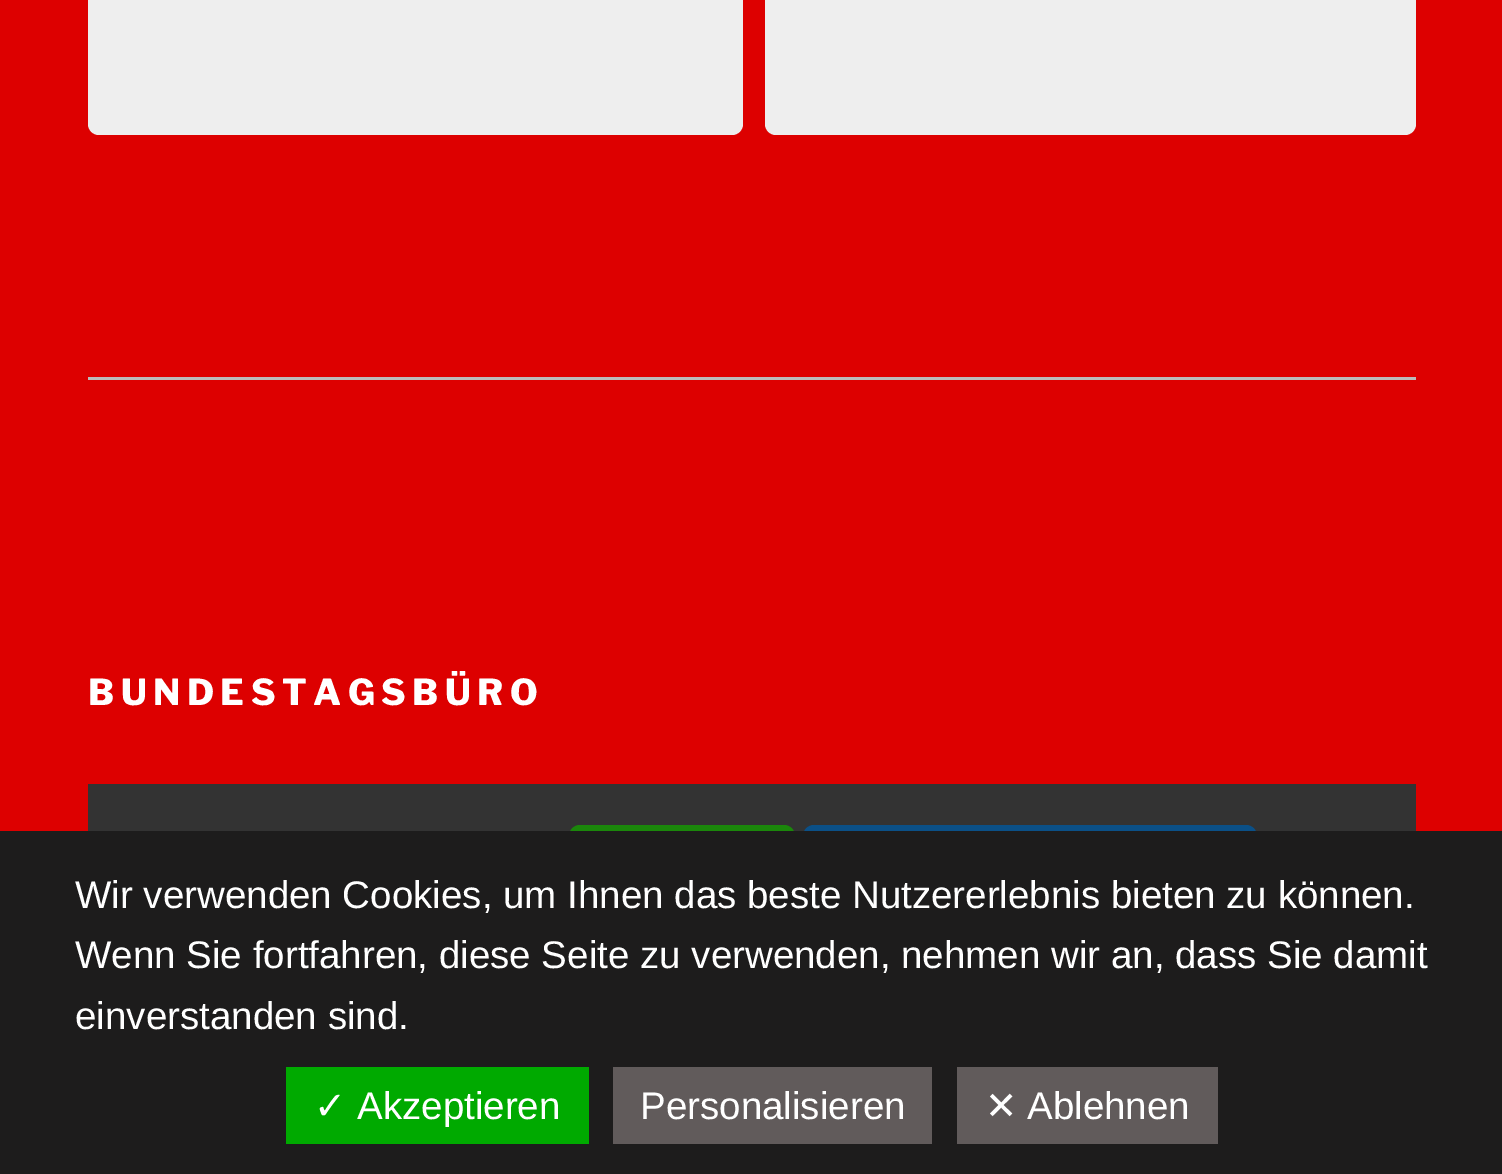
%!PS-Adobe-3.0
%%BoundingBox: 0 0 1502 1174
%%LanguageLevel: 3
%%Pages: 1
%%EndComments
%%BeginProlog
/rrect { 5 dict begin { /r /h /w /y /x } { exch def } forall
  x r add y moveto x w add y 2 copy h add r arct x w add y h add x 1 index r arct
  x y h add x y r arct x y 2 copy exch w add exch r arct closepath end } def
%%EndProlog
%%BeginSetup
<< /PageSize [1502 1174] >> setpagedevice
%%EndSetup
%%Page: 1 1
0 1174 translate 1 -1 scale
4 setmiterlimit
0.867 0 0 setrgbcolor
0 0 1502 1174 rectfill
0.933 setgray
88 -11 655 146 11 rrect fill
765 -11 651 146 11 rrect fill
0.733 setgray
88 377 1328 3 rectfill
0.2 setgray
88 784 1328 47 rectfill
0.106 0.529 0.043 setrgbcolor
569 825 226 83 11 rrect fill
0.043 0.314 0.529 setrgbcolor
803 825 454 83 11 rrect fill
0.114 0.11 0.11 setrgbcolor
0 831 1502 343 rectfill
0 0.667 0 setrgbcolor
286 1067 303 77 rectfill
0.38 0.357 0.357 setrgbcolor
613 1067 319 77 rectfill
957 1067 261 77 rectfill
/LibreFranklin-Thin [35.75 0 0 -35.75 0 0] selectfont
1 setgray
88 705 moveto 6.5 0 (BUNDESTAGSBÜRO) ashow
/LiberationSans-Regular [38.5 0 0 -38.5 0 0] selectfont
75 908 moveto (Wir verwenden Cookies, um Ihnen das beste Nutzererlebnis bieten zu können.) show
75 968 moveto (Wenn Sie fortfahren, diese Seite zu verwenden, nehmen wir an, dass Sie damit) show
75 1029 moveto (einverstanden sind.) show
/DejaVuSans-Regular [38.5 0 0 -38.5 0 0] selectfont
314 1119 moveto (✓) show
/LiberationSans-Regular [38.5 0 0 -38.5 0 0] selectfont
357 1119 moveto (Akzeptieren) show
640 1119 moveto (Personalisieren) show
/DejaVuSans-Regular [38.5 0 0 -38.5 0 0] selectfont
985 1119 moveto (✕) show
/LiberationSans-Regular [38.5 0 0 -38.5 0 0] selectfont
1027 1119 moveto (Ablehnen) show
showpage
%%EOF
